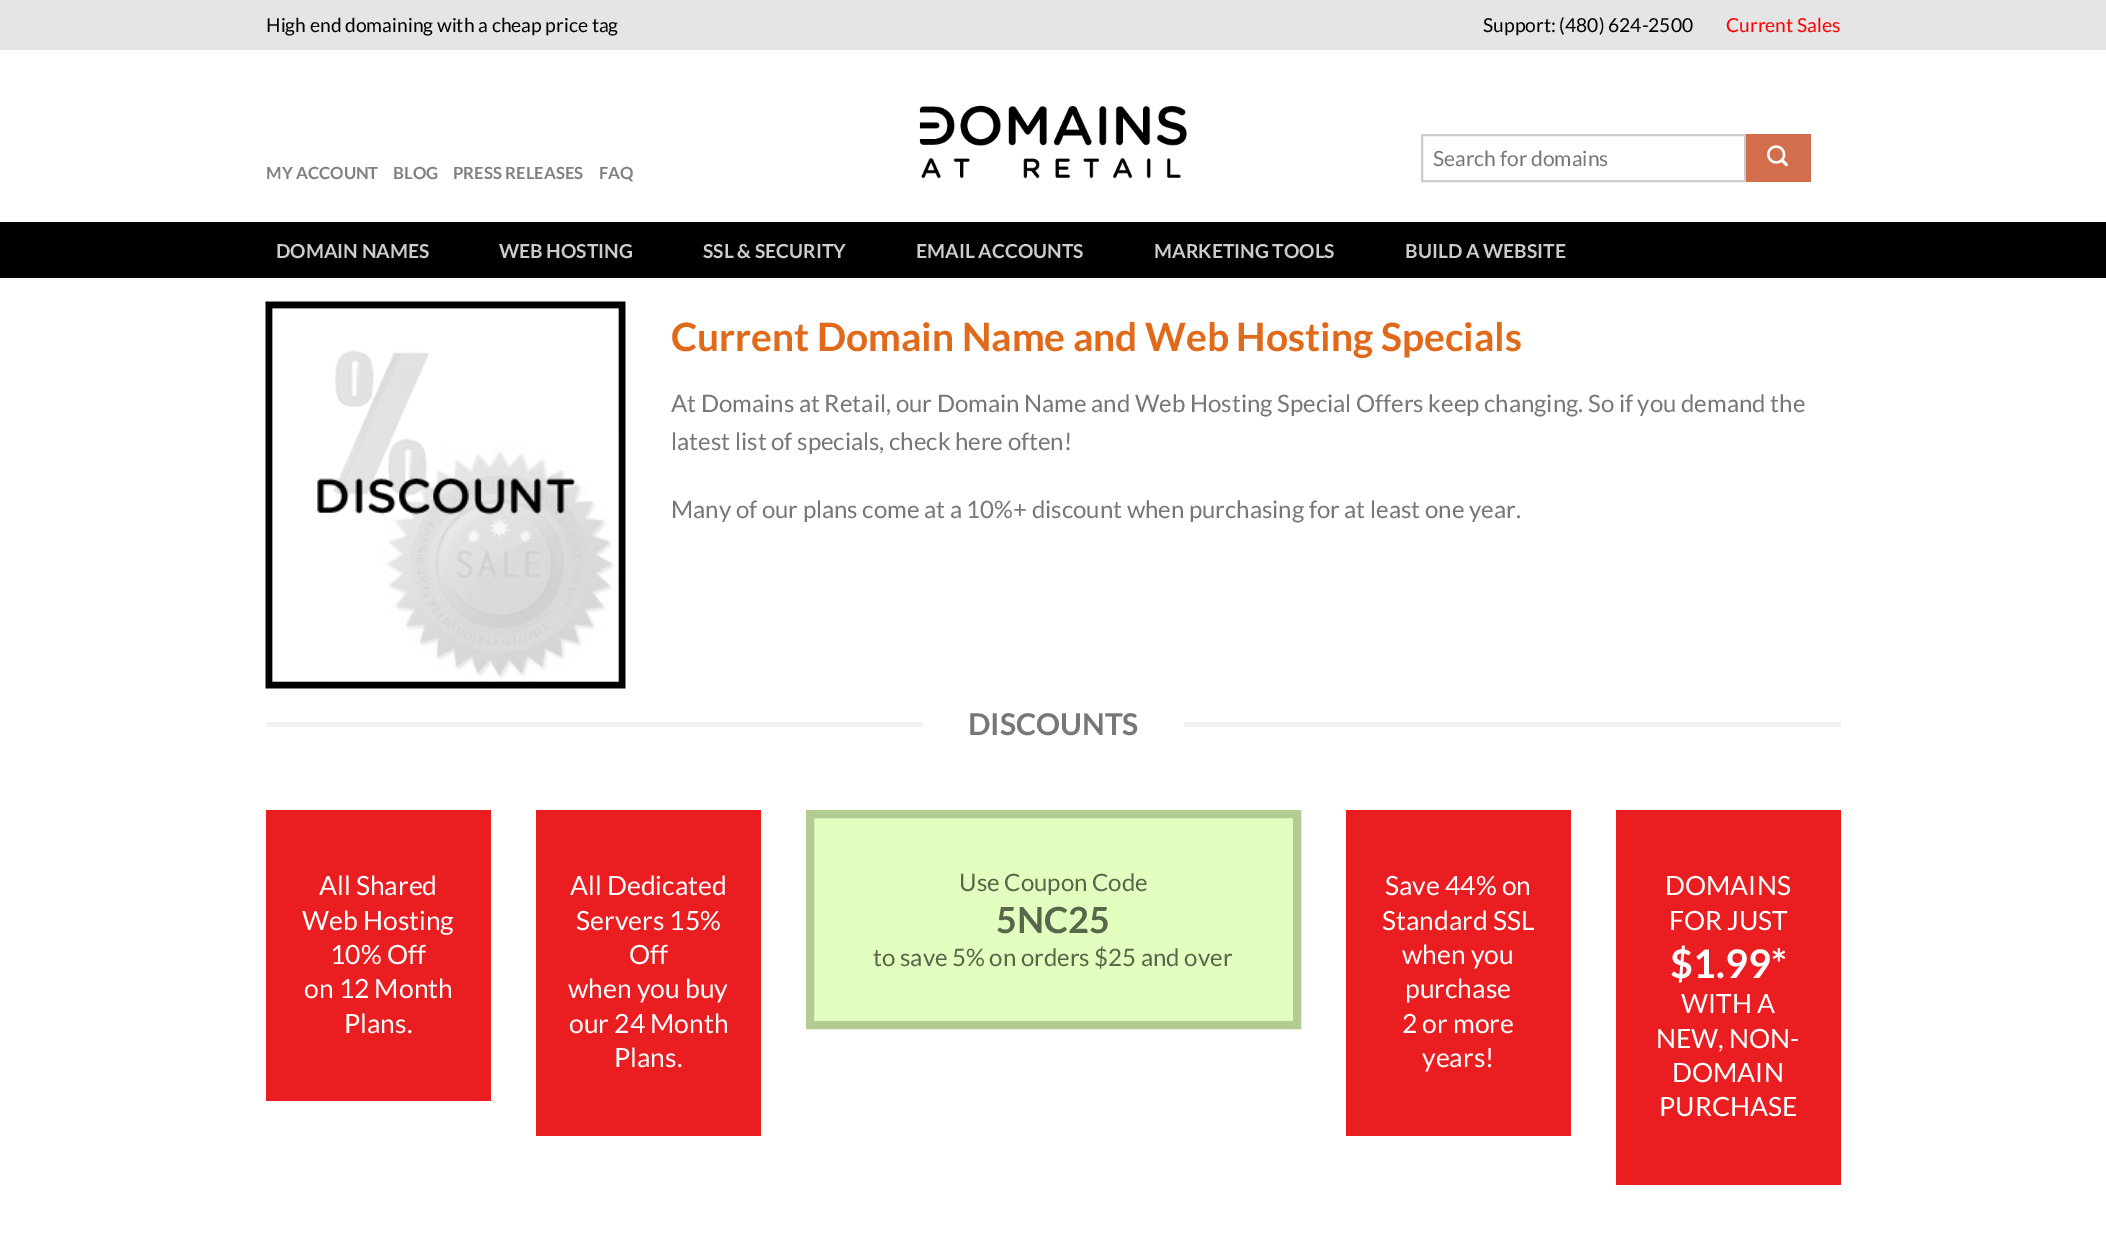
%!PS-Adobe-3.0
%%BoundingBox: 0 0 2106 1246
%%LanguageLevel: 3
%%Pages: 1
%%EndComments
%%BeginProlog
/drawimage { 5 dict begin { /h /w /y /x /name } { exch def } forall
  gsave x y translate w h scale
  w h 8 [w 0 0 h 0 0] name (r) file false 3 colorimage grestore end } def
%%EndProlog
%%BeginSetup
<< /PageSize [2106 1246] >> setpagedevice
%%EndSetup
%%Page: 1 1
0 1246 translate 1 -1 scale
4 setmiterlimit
1 setgray
0 0 2106 1246 rectfill
0.898 setgray
0 0 2106 50 rectfill
(images/1.raw) 919 105 268 74 drawimage
0.8 setgray
2 setlinewidth
1422 135 323 46 rectstroke
0.824 0.431 0.294 setrgbcolor
1746 134 65 48 rectfill
(images/2.raw) 1767 145 21 22 drawimage
0 setgray
0 222 2106 56 rectfill
(images/3.raw) 265 301 361 388 drawimage
0.945 setgray
266 722 1575 5 rectfill
1 setgray
923 722 261 5 rectfill
0.918 0.114 0.125 setrgbcolor
266 810 225 291 rectfill
536 810 225 326 rectfill
0.886 1 0.749 setrgbcolor
newpath 810 814 moveto 1297 814 lineto 1297 1025 lineto 810 1025 lineto closepath gsave fill grestore
0.698 0.8 0.576 setrgbcolor
8 setlinewidth
stroke
0.918 0.114 0.125 setrgbcolor
1346 810 225 326 rectfill
1616 810 225 375 rectfill
/Lato-Regular [19.25 0 0 -19.25 0 0] selectfont
0 setgray
266 32 moveto (High end domaining with a cheap price tag) show
1483 32 moveto (Support: \(480\) 624-2500) show
1 0 0 setrgbcolor
1726 32 moveto (Current Sales) show
/Lato-Regular [21 0 0 -21 0 0] selectfont
0.467 setgray
1433 166 moveto (Search for domains) show
/Lato-Bold [16.75 0 0 -16.75 0 0] selectfont
0.502 setgray
266 179 moveto (MY ACCOUNT) show
393 179 moveto (BLOG) show
453 179 moveto (PRESS RELEASES) show
599 179 moveto (FAQ) show
/Lato-Bold [19.25 0 0 -19.25 0 0] selectfont
0.8 setgray
276 258 moveto (DOMAIN NAMES) show
499 258 moveto (WEB HOSTING) show
703 258 moveto (SSL & SECURITY) show
916 258 moveto (EMAIL ACCOUNTS) show
1154 258 moveto (MARKETING TOOLS) show
1405 258 moveto (BUILD A WEBSITE) show
/Lato-Bold [39 0 0 -39 0 0] selectfont
0.878 0.412 0.102 setrgbcolor
671 351 moveto (Current Domain Name and Web Hosting Specials) show
/Lato-Regular [24 0 0 -24 0 0] selectfont
0.467 setgray
671 412 moveto (At Domains at Retail, our Domain Name and Web Hosting Special Offers keep changing. So if you demand the) show
671 450 moveto (latest list of specials, check here often!) show
671 518 moveto (Many of our plans come at a 10%+ discount when purchasing for at least one year.) show
/Lato-Bold [30 0 0 -30 0 0] selectfont
968 735 moveto (DISCOUNTS) show
/Lato-Regular [26.5 0 0 -26.5 0 0] selectfont
1 setgray
319 895 moveto (All Shared) show
302 930 moveto (Web Hosting) show
330 964 moveto (10% Off) show
304 998 moveto (on 12 Month) show
344 1033 moveto (Plans.) show
570 895 moveto (All Dedicated) show
576 930 moveto (Servers 15%) show
629 964 moveto (Off) show
568 998 moveto (when you buy) show
569 1033 moveto (our 24 Month) show
614 1067 moveto (Plans.) show
/Lato-Regular [24 0 0 -24 0 0] selectfont
0.349 0.4 0.29 setrgbcolor
959 891 moveto (Use Coupon Code) show
/Lato-Bold [36 0 0 -36 0 0] selectfont
996 933 moveto (5NC25) show
/Lato-Regular [24 0 0 -24 0 0] selectfont
873 966 moveto (to save 5% on orders $25 and over) show
/Lato-Regular [26.5 0 0 -26.5 0 0] selectfont
1 setgray
1385 895 moveto (Save 44% on) show
1382 930 moveto (Standard SSL) show
1402 964 moveto (when you) show
1405 998 moveto (purchase) show
1402 1033 moveto (2 or more) show
1422 1067 moveto (years!) show
1665 895 moveto (DOMAINS) show
1669 930 moveto (FOR JUST) show
/Lato-Bold [39.5 0 0 -39.5 0 0] selectfont
1670 978 moveto ($1.99*) show
/Lato-Regular [26.5 0 0 -26.5 0 0] selectfont
1681 1013 moveto (WITH A) show
1656 1048 moveto (NEW, NON-) show
1672 1082 moveto (DOMAIN) show
1659 1116 moveto (PURCHASE) show
showpage
%%EOF
